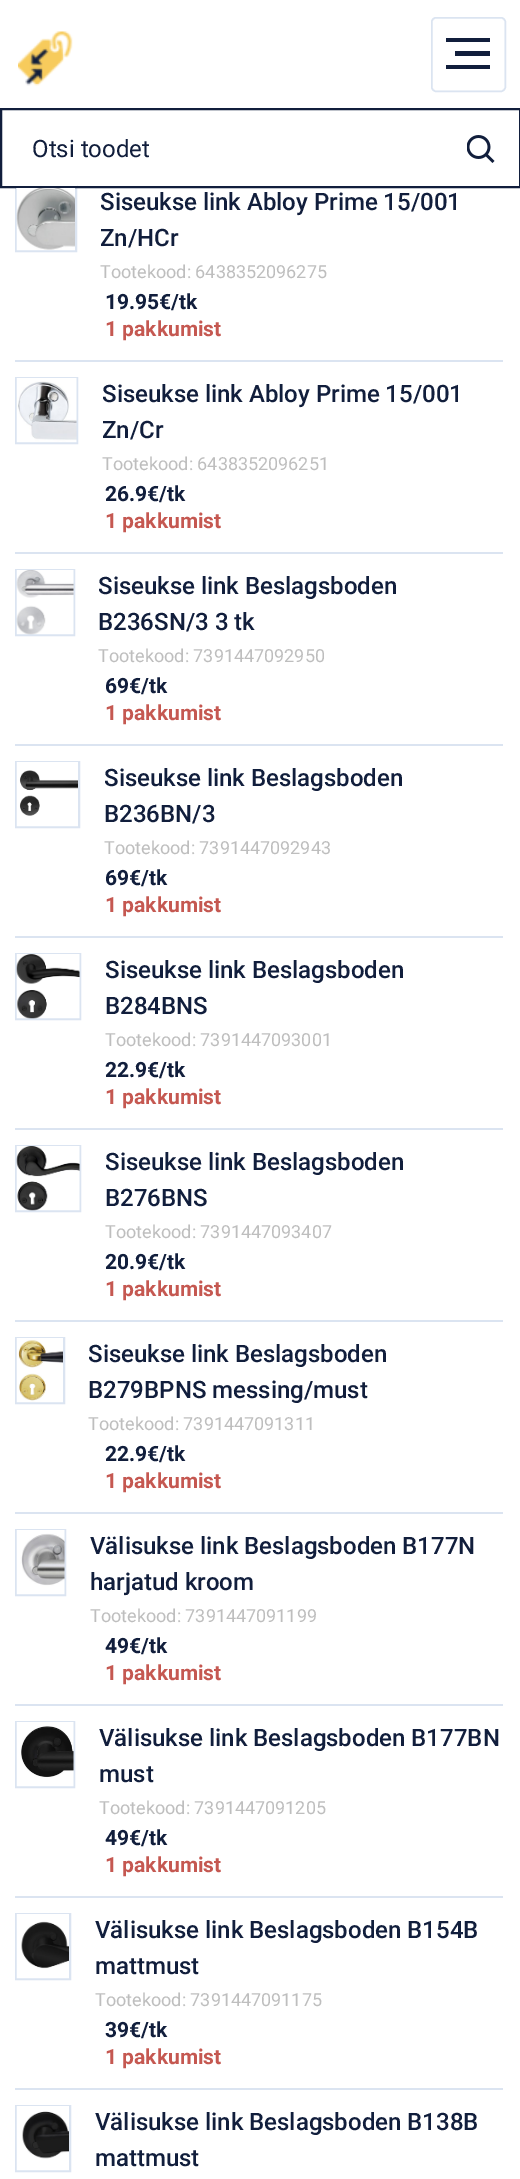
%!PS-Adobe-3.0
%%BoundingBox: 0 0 520 2179
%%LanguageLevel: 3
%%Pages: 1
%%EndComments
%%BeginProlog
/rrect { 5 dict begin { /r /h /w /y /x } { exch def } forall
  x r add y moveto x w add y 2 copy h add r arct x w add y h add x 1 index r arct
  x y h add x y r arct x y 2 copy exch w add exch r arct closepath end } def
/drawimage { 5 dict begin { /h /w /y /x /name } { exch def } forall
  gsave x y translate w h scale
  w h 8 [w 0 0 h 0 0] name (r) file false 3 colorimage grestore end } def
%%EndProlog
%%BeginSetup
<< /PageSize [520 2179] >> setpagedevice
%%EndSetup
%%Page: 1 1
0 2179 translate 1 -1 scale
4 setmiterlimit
1 setgray
0 0 520 2179 rectfill
(images/1.raw) 18 31 55 55 drawimage
0.859 0.894 0.945 setrgbcolor
1.5 setlinewidth
431.75 17.75 73.5 73.5 4.25 rrect stroke
0.067 0.118 0.235 setrgbcolor
446 38 44 4 rectfill
455 51 35 5 rectfill
446 65 44 4 rectfill
0.859 0.894 0.945 setrgbcolor
2 setlinewidth
16 186 60 65 rectstroke
1 setgray
15 185 62 1 rectfill
0.067 0.118 0.235 setrgbcolor
1 109 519 78 rectstroke
(images/2.raw) 467 135 28 28 drawimage
0.859 0.894 0.945 setrgbcolor
15 360 488 2 rectfill
(images/3.raw) 16 188 59 63 drawimage
15 552 488 2 rectfill
16 378 61 65 rectstroke
(images/4.raw) 16 378 61 65 drawimage
15 744 488 2 rectfill
16 570 58 65 rectstroke
(images/5.raw) 16 570 58 65 drawimage
15 936 488 2 rectfill
16 762 63 65 rectstroke
(images/6.raw) 16 762 62 65 drawimage
15 1128 488 2 rectfill
16 954 64 65 rectstroke
(images/7.raw) 16 954 64 65 drawimage
15 1320 488 2 rectfill
16 1146 64 65 rectstroke
(images/8.raw) 16 1146 64 65 drawimage
15 1512 488 2 rectfill
16 1338 48 65 rectstroke
(images/9.raw) 16 1338 47 65 drawimage
15 1704 488 2 rectfill
16 1530 49 65 rectstroke
(images/10.raw) 16 1530 49 65 drawimage
15 1896 488 2 rectfill
16 1722 58 65 rectstroke
(images/11.raw) 16 1722 58 65 drawimage
15 2088 488 2 rectfill
16 1914 54 65 rectstroke
(images/12.raw) 16 1914 53 65 drawimage
16 2106 54 65 rectstroke
(images/13.raw) 16 2106 53 65 drawimage
/Roboto-Regular [24 0 0 -24 0 0] selectfont
0.067 0.118 0.235 setrgbcolor
32 157 moveto (Otsi toodet) show
/Roboto-Medium [24 0 0 -24 0 0] selectfont
100 210 moveto (Siseukse link Abloy Prime 15/001) show
100 246 moveto (Zn/HCr) show
/Roboto-Regular [18 0 0 -18 0 0] selectfont
0.745 setgray
100 278 moveto (Tootekood: 6438352096275) show
/Roboto-Bold [21 0 0 -21 0 0] selectfont
0.067 0.118 0.235 setrgbcolor
105 309 moveto (19.95€/tk) show
0.773 0.345 0.318 setrgbcolor
105 336 moveto (1 pakkumist) show
/Roboto-Medium [24 0 0 -24 0 0] selectfont
0.067 0.118 0.235 setrgbcolor
102 402 moveto (Siseukse link Abloy Prime 15/001) show
102 438 moveto (Zn/Cr) show
/Roboto-Regular [18 0 0 -18 0 0] selectfont
0.745 setgray
102 470 moveto (Tootekood: 6438352096251) show
/Roboto-Bold [21 0 0 -21 0 0] selectfont
0.067 0.118 0.235 setrgbcolor
105 501 moveto (26.9€/tk) show
0.773 0.345 0.318 setrgbcolor
105 528 moveto (1 pakkumist) show
/Roboto-Medium [24 0 0 -24 0 0] selectfont
0.067 0.118 0.235 setrgbcolor
98 594 moveto (Siseukse link Beslagsboden) show
98 630 moveto (B236SN/3 3 tk) show
/Roboto-Regular [18 0 0 -18 0 0] selectfont
0.745 setgray
98 662 moveto (Tootekood: 7391447092950) show
/Roboto-Bold [21 0 0 -21 0 0] selectfont
0.067 0.118 0.235 setrgbcolor
105 693 moveto (69€/tk) show
0.773 0.345 0.318 setrgbcolor
105 720 moveto (1 pakkumist) show
/Roboto-Medium [24 0 0 -24 0 0] selectfont
0.067 0.118 0.235 setrgbcolor
104 786 moveto (Siseukse link Beslagsboden) show
104 822 moveto (B236BN/3) show
/Roboto-Regular [18 0 0 -18 0 0] selectfont
0.745 setgray
104 854 moveto (Tootekood: 7391447092943) show
/Roboto-Bold [21 0 0 -21 0 0] selectfont
0.067 0.118 0.235 setrgbcolor
105 885 moveto (69€/tk) show
0.773 0.345 0.318 setrgbcolor
105 912 moveto (1 pakkumist) show
/Roboto-Medium [24 0 0 -24 0 0] selectfont
0.067 0.118 0.235 setrgbcolor
105 978 moveto (Siseukse link Beslagsboden) show
105 1014 moveto (B284BNS) show
/Roboto-Regular [18 0 0 -18 0 0] selectfont
0.745 setgray
105 1046 moveto (Tootekood: 7391447093001) show
/Roboto-Bold [21 0 0 -21 0 0] selectfont
0.067 0.118 0.235 setrgbcolor
105 1077 moveto (22.9€/tk) show
0.773 0.345 0.318 setrgbcolor
105 1104 moveto (1 pakkumist) show
/Roboto-Medium [24 0 0 -24 0 0] selectfont
0.067 0.118 0.235 setrgbcolor
105 1170 moveto (Siseukse link Beslagsboden) show
105 1206 moveto (B276BNS) show
/Roboto-Regular [18 0 0 -18 0 0] selectfont
0.745 setgray
105 1238 moveto (Tootekood: 7391447093407) show
/Roboto-Bold [21 0 0 -21 0 0] selectfont
0.067 0.118 0.235 setrgbcolor
105 1269 moveto (20.9€/tk) show
0.773 0.345 0.318 setrgbcolor
105 1296 moveto (1 pakkumist) show
/Roboto-Medium [24 0 0 -24 0 0] selectfont
0.067 0.118 0.235 setrgbcolor
88 1362 moveto (Siseukse link Beslagsboden) show
88 1398 moveto (B279BPNS messing/must) show
/Roboto-Regular [18 0 0 -18 0 0] selectfont
0.745 setgray
88 1430 moveto (Tootekood: 7391447091311) show
/Roboto-Bold [21 0 0 -21 0 0] selectfont
0.067 0.118 0.235 setrgbcolor
105 1461 moveto (22.9€/tk) show
0.773 0.345 0.318 setrgbcolor
105 1488 moveto (1 pakkumist) show
/Roboto-Medium [24 0 0 -24 0 0] selectfont
0.067 0.118 0.235 setrgbcolor
90 1554 moveto (Välisukse link Beslagsboden B177N) show
90 1590 moveto (harjatud kroom) show
/Roboto-Regular [18 0 0 -18 0 0] selectfont
0.745 setgray
90 1622 moveto (Tootekood: 7391447091199) show
/Roboto-Bold [21 0 0 -21 0 0] selectfont
0.067 0.118 0.235 setrgbcolor
105 1653 moveto (49€/tk) show
0.773 0.345 0.318 setrgbcolor
105 1680 moveto (1 pakkumist) show
/Roboto-Medium [24 0 0 -24 0 0] selectfont
0.067 0.118 0.235 setrgbcolor
99 1746 moveto (Välisukse link Beslagsboden B177BN) show
99 1782 moveto (must) show
/Roboto-Regular [18 0 0 -18 0 0] selectfont
0.745 setgray
99 1814 moveto (Tootekood: 7391447091205) show
/Roboto-Bold [21 0 0 -21 0 0] selectfont
0.067 0.118 0.235 setrgbcolor
105 1845 moveto (49€/tk) show
0.773 0.345 0.318 setrgbcolor
105 1872 moveto (1 pakkumist) show
/Roboto-Medium [24 0 0 -24 0 0] selectfont
0.067 0.118 0.235 setrgbcolor
95 1938 moveto (Välisukse link Beslagsboden B154B) show
95 1974 moveto (mattmust) show
/Roboto-Regular [18 0 0 -18 0 0] selectfont
0.745 setgray
95 2006 moveto (Tootekood: 7391447091175) show
/Roboto-Bold [21 0 0 -21 0 0] selectfont
0.067 0.118 0.235 setrgbcolor
105 2037 moveto (39€/tk) show
0.773 0.345 0.318 setrgbcolor
105 2064 moveto (1 pakkumist) show
/Roboto-Medium [24 0 0 -24 0 0] selectfont
0.067 0.118 0.235 setrgbcolor
95 2130 moveto (Välisukse link Beslagsboden B138B) show
95 2166 moveto (mattmust) show
showpage
%%EOF
